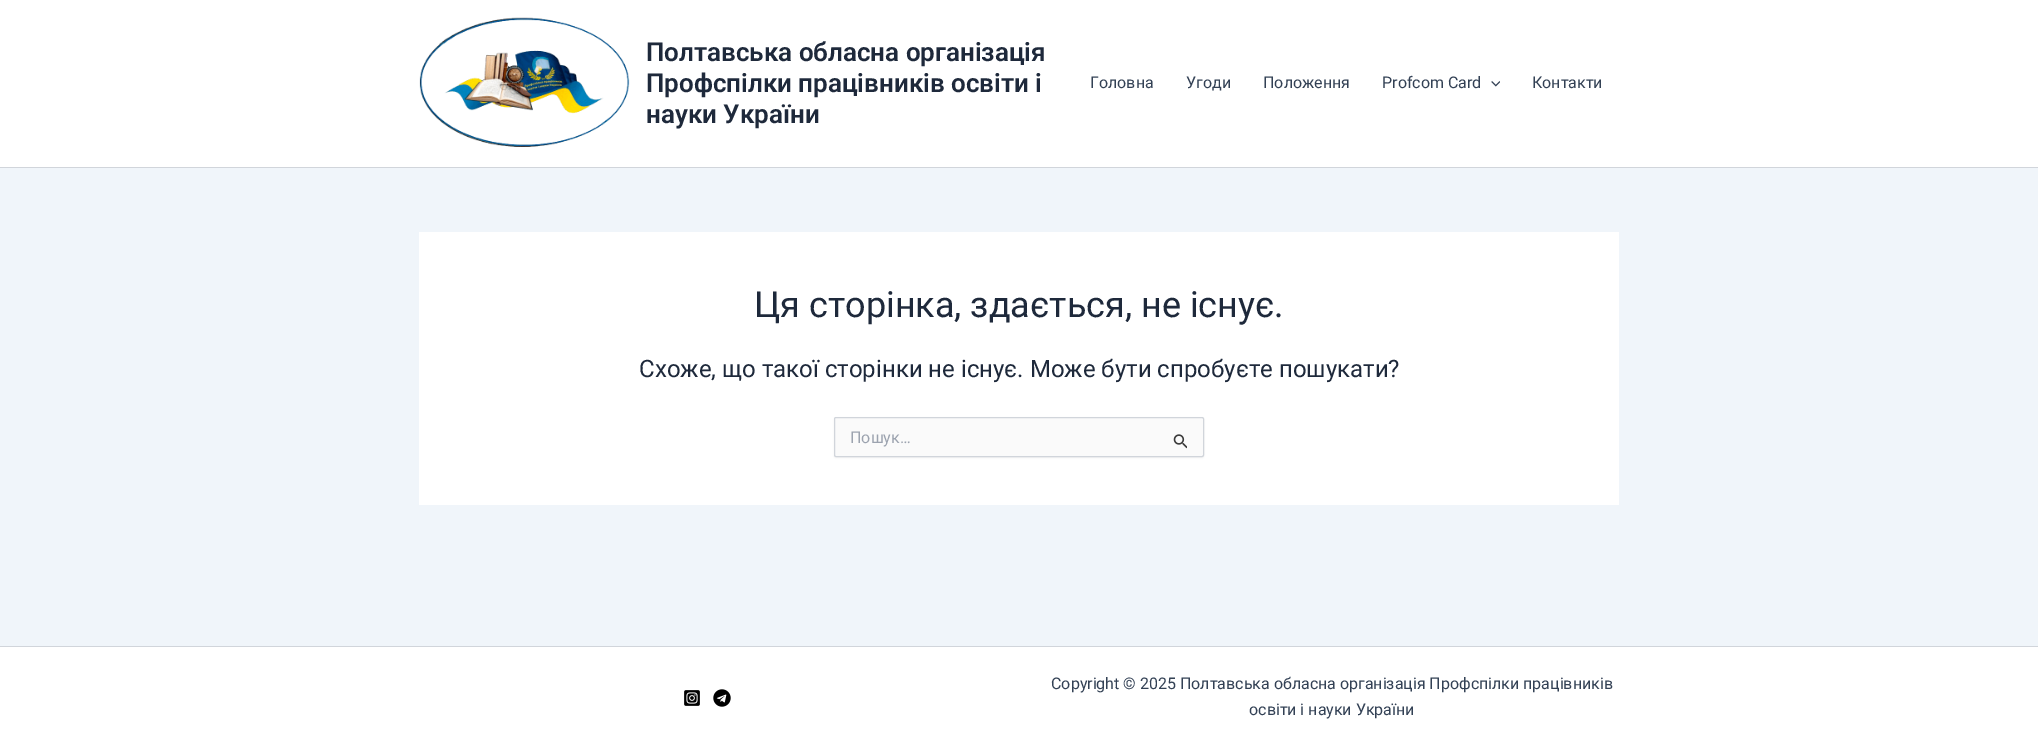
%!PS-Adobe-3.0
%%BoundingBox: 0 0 2038 747
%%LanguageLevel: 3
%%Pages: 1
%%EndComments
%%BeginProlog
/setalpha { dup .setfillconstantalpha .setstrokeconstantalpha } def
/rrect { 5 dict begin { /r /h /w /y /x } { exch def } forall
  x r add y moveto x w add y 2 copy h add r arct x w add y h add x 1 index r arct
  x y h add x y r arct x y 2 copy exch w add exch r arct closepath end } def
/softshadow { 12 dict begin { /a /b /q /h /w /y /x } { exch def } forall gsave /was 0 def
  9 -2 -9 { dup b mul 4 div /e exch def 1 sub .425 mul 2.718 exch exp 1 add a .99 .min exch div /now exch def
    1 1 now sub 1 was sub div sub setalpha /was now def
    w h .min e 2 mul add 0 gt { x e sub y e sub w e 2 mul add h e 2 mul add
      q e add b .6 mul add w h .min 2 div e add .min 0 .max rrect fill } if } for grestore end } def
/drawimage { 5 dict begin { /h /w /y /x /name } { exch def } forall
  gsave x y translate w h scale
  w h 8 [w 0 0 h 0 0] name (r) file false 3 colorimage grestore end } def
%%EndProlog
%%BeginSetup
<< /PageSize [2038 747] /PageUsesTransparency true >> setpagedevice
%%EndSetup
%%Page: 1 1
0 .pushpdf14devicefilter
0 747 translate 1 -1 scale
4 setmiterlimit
0.941 0.961 0.98 setrgbcolor
0 0 2038 747 rectfill
1 setgray
0 0 2038 167 rectfill
0.82 0.835 0.859 setrgbcolor
0 167 2038 1 rectfill
(images/1.raw) 419 17 211 130 drawimage
(images/2.raw) 1491 81 9 6 drawimage
1 setgray
419 232 1200 273 rectfill
0 setgray
834 418 370 40 2 1 0.05 softshadow
0.98 setgray
834.5 417.5 369 39 1.5 rrect gsave fill grestore
0.82 0.835 0.859 setrgbcolor
stroke
(images/3.raw) 1173 434 14 15 drawimage
1 setgray
0 647 2038 100 rectfill
0.82 0.835 0.859 setrgbcolor
0 646 2038 1 rectfill
(images/4.raw) 684 690 16 16 drawimage
(images/5.raw) 713 689 18 18 drawimage
/Roboto-SemiBold [26 0 0 -26 0 0] selectfont
0.118 0.161 0.231 setrgbcolor
646 61 moveto (Полтавська обласна організація) show
646 92 moveto (Профспілки працівників освіти і) show
646 123 moveto (науки України) show
/Roboto-Regular [16 0 0 -16 0 0] selectfont
0.2 0.255 0.333 setrgbcolor
1090 88 moveto (Головна) show
1186 88 moveto (Угоди) show
1263 88 moveto (Положення) show
1382 88 moveto (Profcom Card) show
1532 88 moveto (Контакти) show
/Roboto-Regular [36 0 0 -36 0 0] selectfont
0.118 0.161 0.231 setrgbcolor
754 317 moveto (Ця сторінка, здається, не існує.) show
/Roboto-Regular [24 0 0 -24 0 0] selectfont
639 377 moveto (Схоже, що такої сторінки не існує. Може бути спробуєте пошукати?) show
/Roboto-Regular [16 0 0 -16 0 0] selectfont
0.612 0.639 0.686 setrgbcolor
850 443 moveto (Пошук…) show
0.2 0.255 0.333 setrgbcolor
1051 689 moveto (Copyright © 2025 Полтавська обласна організація Профспілки працівників) show
1249 715 moveto (освіти і науки України) show
.poppdf14devicefilter showpage
%%EOF
